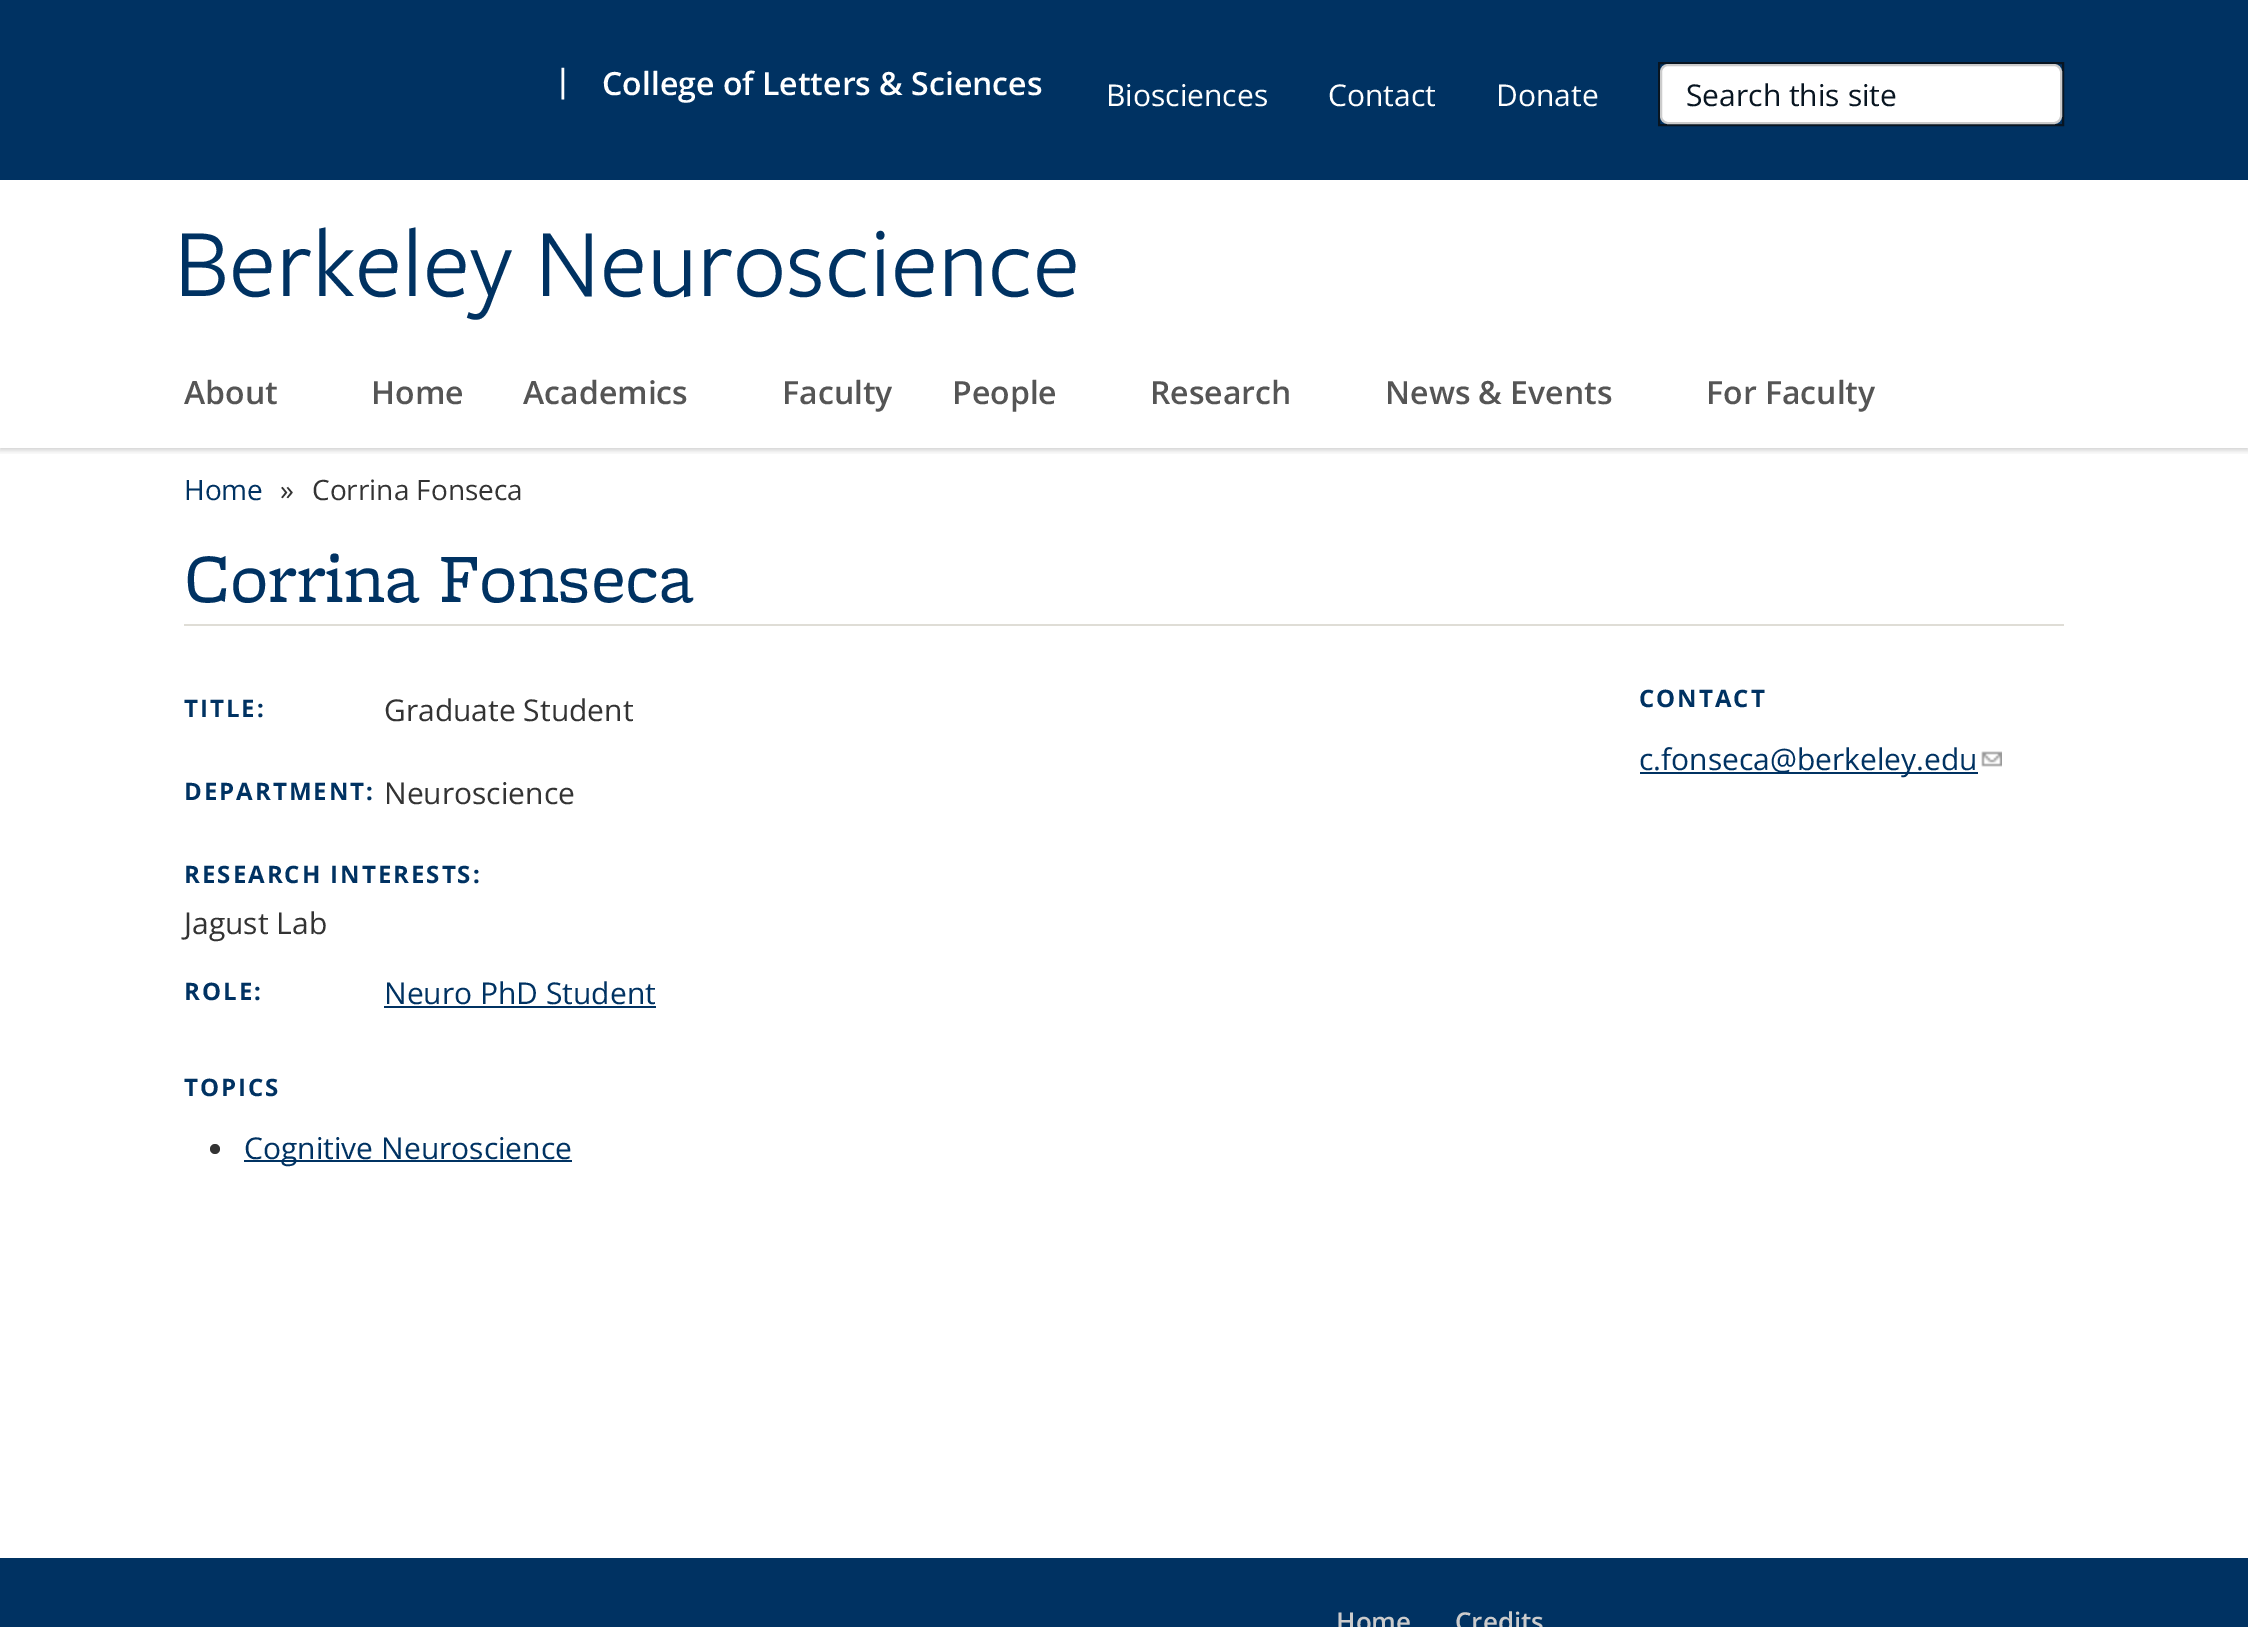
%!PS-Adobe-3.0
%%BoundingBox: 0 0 2248 1627
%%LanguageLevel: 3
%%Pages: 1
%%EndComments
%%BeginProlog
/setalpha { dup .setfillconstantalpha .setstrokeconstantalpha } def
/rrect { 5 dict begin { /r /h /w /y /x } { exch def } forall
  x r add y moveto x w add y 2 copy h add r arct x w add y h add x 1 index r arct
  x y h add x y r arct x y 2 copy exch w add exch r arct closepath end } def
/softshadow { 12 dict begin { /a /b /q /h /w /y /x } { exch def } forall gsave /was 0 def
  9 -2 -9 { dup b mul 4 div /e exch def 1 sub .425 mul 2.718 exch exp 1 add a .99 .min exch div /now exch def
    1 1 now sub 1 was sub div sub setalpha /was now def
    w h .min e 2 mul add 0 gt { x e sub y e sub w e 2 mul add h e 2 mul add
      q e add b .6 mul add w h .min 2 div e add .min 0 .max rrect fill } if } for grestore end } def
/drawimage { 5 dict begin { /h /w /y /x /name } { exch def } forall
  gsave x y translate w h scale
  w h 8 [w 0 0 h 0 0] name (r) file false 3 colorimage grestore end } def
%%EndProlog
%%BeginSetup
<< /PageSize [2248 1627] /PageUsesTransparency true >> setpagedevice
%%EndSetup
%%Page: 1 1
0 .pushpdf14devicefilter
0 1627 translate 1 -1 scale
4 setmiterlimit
1 setgray
0 0 2248 1627 rectfill
gsave
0 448 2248 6 rectclip
0 setgray
0 2 2248 448 0 3 0.2 softshadow
grestore
0 0.196 0.384 setrgbcolor
0 0 2248 180 rectfill
0.031 0.082 0.129 setrgbcolor
2 setlinewidth
1659 63 404 62 rectstroke
1 setgray
1661 65 400 58 7 rrect gsave fill grestore
0.8 setgray
stroke
0.875 0.867 0.839 setrgbcolor
184 624 1880 2 rectfill
0 0.196 0.384 setrgbcolor
384 1006 272 2 rectfill
0.2 setgray
newpath 215 1149 5 0 360 arc closepath fill
0 0.196 0.384 setrgbcolor
244 1160 328 2 rectfill
1640 772 338 2 rectfill
(images/1.raw) 1981 751 21 16 drawimage
0 1558 2248 69 rectfill
/OpenSans-SemiBold [32 0 0 -32 0 0] selectfont
1 setgray
554 92 moveto (|) show
602 95 moveto (College of Letters & Sciences) show
/OpenSans-Regular [30 0 0 -30 0 0] selectfont
1106 106 moveto (Biosciences) show
1328 106 moveto (Contact) show
1496 106 moveto (Donate) show
0.031 0.082 0.129 setrgbcolor
1686 106 moveto (Search this site) show
/OpenSans-SemiBold [32 0 0 -32 0 0] selectfont
0.333 setgray
184 404 moveto (About) show
371 404 moveto (Home) show
523 404 moveto (Academics) show
782 404 moveto (Faculty) show
952 404 moveto (People) show
1150 404 moveto (Research) show
1385 404 moveto (News & Events) show
1706 404 moveto (For Faculty) show
/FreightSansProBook-Regular [100 0 0 -100 0 0] selectfont
0 0.196 0.384 setrgbcolor
174 296 moveto (Berkeley Neuroscience) show
/OpenSans-Regular [28 0 0 -28 0 0] selectfont
184 500 moveto (Home) show
0.2 setgray
280 500 moveto (») show
312 500 moveto (Corrina Fonseca) show
/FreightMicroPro-Regular [72 0 0 -72 0 0] selectfont
0 0.196 0.384 setrgbcolor
184 602 moveto (Corrina Fonseca) show
/OpenSans-Bold [24 0 0 -24 0 0] selectfont
184 717 moveto 2 0 (TITLE:) ashow
/OpenSans-Regular [30 0 0 -30 0 0] selectfont
0.2 setgray
384 721 moveto (Graduate Student) show
/OpenSans-Bold [24 0 0 -24 0 0] selectfont
0 0.196 0.384 setrgbcolor
184 800 moveto 2 0 (DEPARTMENT:) ashow
/OpenSans-Regular [30 0 0 -30 0 0] selectfont
0.2 setgray
384 804 moveto (Neuroscience) show
/OpenSans-Bold [24 0 0 -24 0 0] selectfont
0 0.196 0.384 setrgbcolor
184 883 moveto 2 0 (RESEARCH INTERESTS:) ashow
/OpenSans-Regular [30 0 0 -30 0 0] selectfont
0.2 setgray
184 934 moveto (Jagust Lab) show
/OpenSans-Bold [24 0 0 -24 0 0] selectfont
0 0.196 0.384 setrgbcolor
184 1000 moveto 2 0 (ROLE:) ashow
/OpenSans-Regular [30 0 0 -30 0 0] selectfont
384 1004 moveto (Neuro PhD Student) show
/OpenSans-Bold [24 0 0 -24 0 0] selectfont
184 1096 moveto 2 0 (TOPICS) ashow
/OpenSans-Regular [30 0 0 -30 0 0] selectfont
244 1159 moveto (Cognitive Neuroscience) show
/OpenSans-Bold [24 0 0 -24 0 0] selectfont
1639 707 moveto 2 0 (CONTACT) ashow
/OpenSans-Regular [30 0 0 -30 0 0] selectfont
1639 770 moveto (c.fonseca@berkeley.edu) show
/OpenSans-SemiBold [26 0 0 -26 0 0] selectfont
0.8 setgray
1336 1631 moveto (Home) show
1455 1631 moveto (Credits) show
.poppdf14devicefilter showpage
%%EOF
